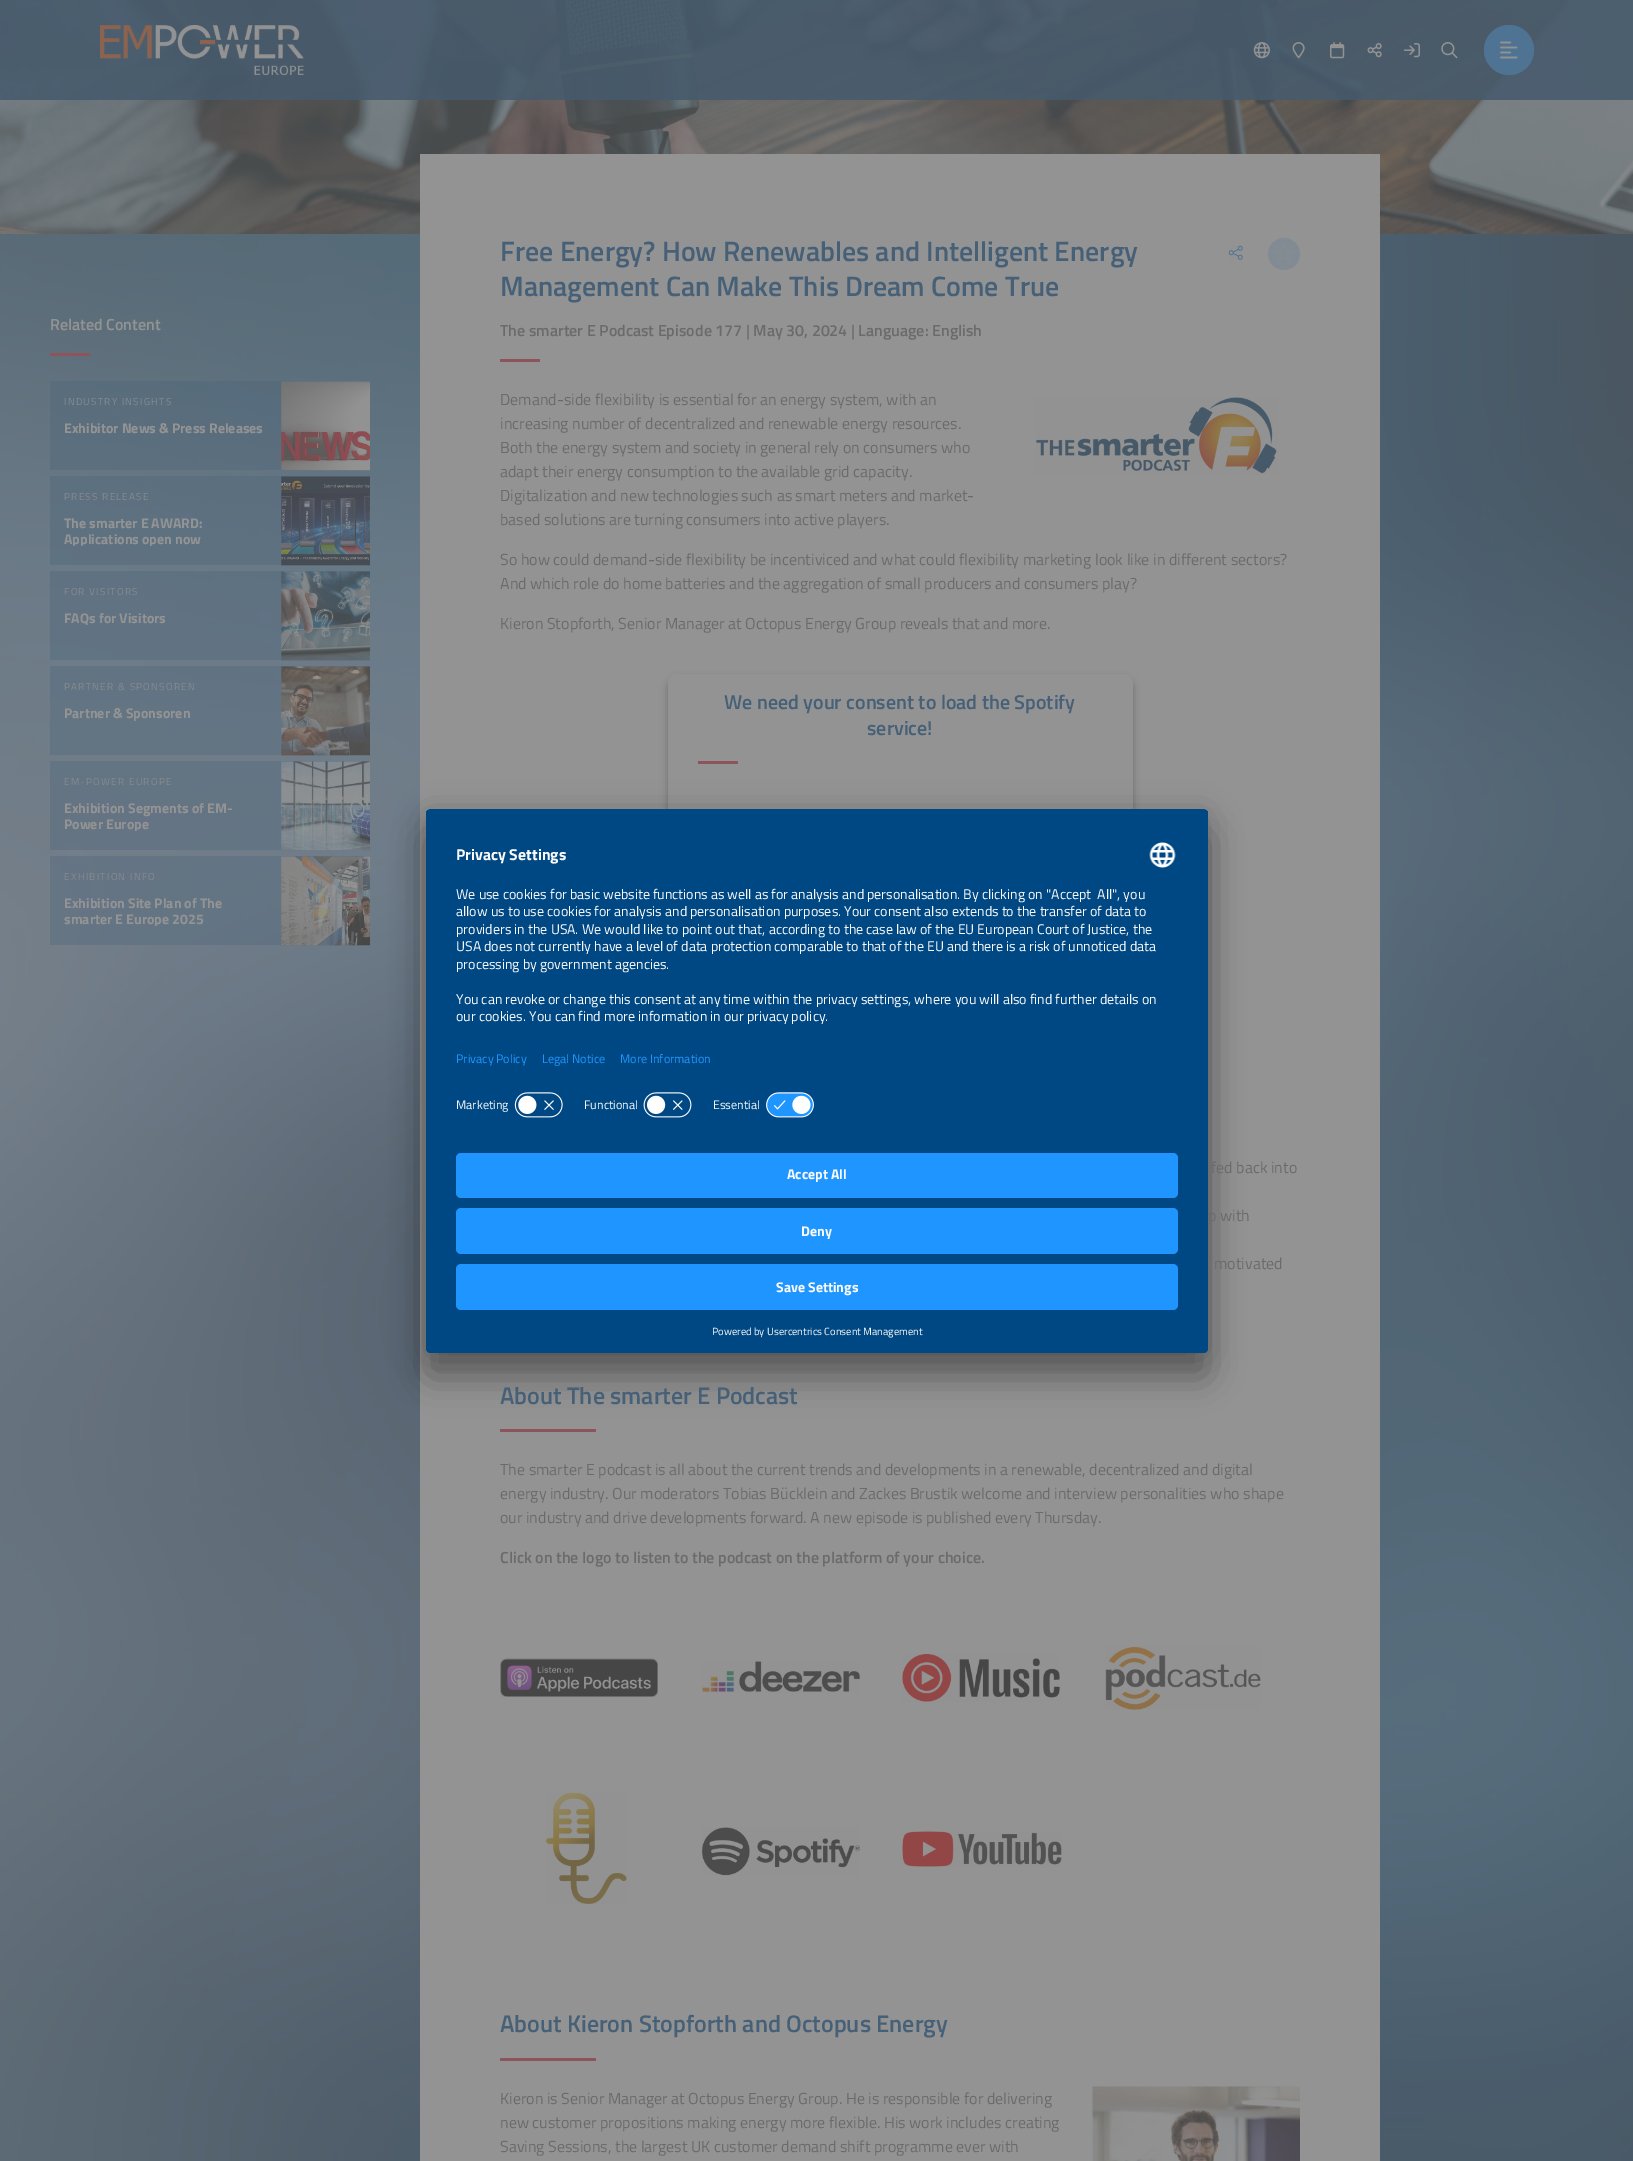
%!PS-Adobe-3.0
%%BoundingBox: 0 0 1633 2161
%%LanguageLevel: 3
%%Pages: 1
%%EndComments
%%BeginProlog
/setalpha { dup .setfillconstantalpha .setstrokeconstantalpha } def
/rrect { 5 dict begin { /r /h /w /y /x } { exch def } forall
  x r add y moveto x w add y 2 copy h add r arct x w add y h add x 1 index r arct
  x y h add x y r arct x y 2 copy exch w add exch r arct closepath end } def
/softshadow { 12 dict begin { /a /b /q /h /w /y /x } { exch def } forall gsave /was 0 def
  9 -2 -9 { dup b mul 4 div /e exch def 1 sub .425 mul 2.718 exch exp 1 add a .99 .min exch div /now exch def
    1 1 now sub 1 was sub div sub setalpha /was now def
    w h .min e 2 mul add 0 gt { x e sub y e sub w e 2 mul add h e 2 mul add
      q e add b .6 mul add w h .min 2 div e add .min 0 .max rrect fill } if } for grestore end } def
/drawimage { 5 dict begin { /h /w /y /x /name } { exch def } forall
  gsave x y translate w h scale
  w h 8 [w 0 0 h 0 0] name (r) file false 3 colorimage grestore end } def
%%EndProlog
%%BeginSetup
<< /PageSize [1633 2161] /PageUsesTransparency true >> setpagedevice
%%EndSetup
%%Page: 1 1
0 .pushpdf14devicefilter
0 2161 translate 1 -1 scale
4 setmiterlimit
1 setgray
0 0 1633 2161 rectfill
(images/1.raw) 0 0 1633 2161 drawimage
(images/2.raw) 0 0 1633 234 drawimage
0.88 setalpha
0.275 0.353 0.424 setrgbcolor
0 0 1633 100 rectfill
1 setalpha
(images/3.raw) 100 25 204 50 drawimage
(images/4.raw) 1253 42 17 17 drawimage
(images/5.raw) 1292 42 13 17 drawimage
(images/6.raw) 1330 42 15 17 drawimage
(images/7.raw) 1367 43 15 15 drawimage
(images/8.raw) 1403 43 17 15 drawimage
(images/9.raw) 1441 42 17 17 drawimage
0.31 0.451 0.576 setrgbcolor
newpath 1509 50 25 0 360 arc closepath fill
(images/10.raw) 1500 41 18 18 drawimage
0.557 0.329 0.357 setrgbcolor
50 353 40 3 rectfill
0.3 setalpha
0.275 0.376 0.467 setrgbcolor
50 381 320 89 rectfill
1 setalpha
(images/11.raw) 281 381 89 90 drawimage
0.3 setalpha
50 476 320 89 rectfill
1 setalpha
(images/12.raw) 281 476 89 90 drawimage
0.3 setalpha
50 571 320 89 rectfill
1 setalpha
(images/13.raw) 281 571 89 90 drawimage
0.3 setalpha
50 666 320 89 rectfill
1 setalpha
(images/14.raw) 281 666 89 90 drawimage
0.3 setalpha
50 761 320 89 rectfill
1 setalpha
(images/15.raw) 281 761 89 90 drawimage
0.3 setalpha
50 856 320 89 rectfill
1 setalpha
(images/16.raw) 281 856 89 90 drawimage
0.576 setgray
420 154 960 2007 rectfill
(images/17.raw) 1228 245 15 15 drawimage
0.51 0.545 0.576 setrgbcolor
newpath 1284 254 16 0 360 arc closepath fill
(images/18.raw) 1276 245 16 16 drawimage
0.557 0.329 0.357 setrgbcolor
500 359 40 3 rectfill
(images/19.raw) 1035 397 244 78 drawimage
0.275 setgray
668 678 465 356 10 4 0.5 softshadow
0.576 setgray
668 674 465 356 10 rrect fill
0.557 0.329 0.357 setrgbcolor
698 761 40 3 rectfill
500 1429 96 3 rectfill
(images/20.raw) 500 1658 158 39 drawimage
(images/21.raw) 701 1661 159 32 drawimage
(images/22.raw) 902 1654 158 48 drawimage
(images/23.raw) 1105 1646 156 64 drawimage
(images/24.raw) 545 1792 83 113 drawimage
(images/25.raw) 702 1827 158 49 drawimage
(images/26.raw) 902 1831 160 36 drawimage
500 2058 96 3 rectfill
(images/27.raw) 1092 2086 208 75 drawimage
0 setgray
426 834 782 544 5 17.5 0.3 softshadow
426 815 782 544 5 16 0.22 softshadow
0 0.282 0.518 setrgbcolor
426 809 782 544 5 rrect fill
gsave
426 809 782 544 5 rrect clip newpath
newpath 431 809 moveto 1203 809 lineto 1206 809 1208 811 1208 814 curveto 1208 1138 lineto 426 1138 lineto 426 814 lineto 426 811 428 809 431 809 curveto closepath clip newpath
426 810 782 328 rectfill
426 810 782 278 rectfill
grestore
(images/28.raw) 1149 842 27 26 drawimage
(images/29.raw) 514 1092 49 26 drawimage
(images/30.raw) 643 1092 49 26 drawimage
(images/31.raw) 766 1092 48 26 drawimage
newpath 426 1138 moveto 1208 1138 lineto 1208 1348 lineto 1208 1351 1206 1353 1203 1353 curveto 431 1353 lineto 428 1353 426 1351 426 1348 curveto closepath fill
0.122 0.588 1 setrgbcolor
456 1153 722 45 5 rrect fill
456 1208 722 46 5 rrect fill
456 1264 722 46 5 rrect fill
/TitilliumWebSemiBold-SemiBold [16 0 0 -16 0 0] selectfont
0.576 setgray
50 330 moveto (Related Content) show
/TitilliumWeb-Regular [10 0 0 -10 0 0] selectfont
0.518 0.537 0.553 setrgbcolor
64 405 moveto 1.25 0 (INDUSTRY INSIGHTS) ashow
/TitilliumWeb-Bold [14 0 0 -14 0 0] selectfont
0.576 setgray
64 433 moveto (Exhibitor News & Press Releases) show
/TitilliumWeb-Regular [10 0 0 -10 0 0] selectfont
0.518 0.537 0.553 setrgbcolor
64 500 moveto 1.25 0 (PRESS RELEASE) ashow
/TitilliumWeb-Bold [14 0 0 -14 0 0] selectfont
0.576 setgray
64 528 moveto (The smarter E AWARD:) show
gsave
64 515 204 31 rectclip
64 544 moveto (Applications open now) show
grestore
/TitilliumWeb-Regular [10 0 0 -10 0 0] selectfont
0.518 0.537 0.553 setrgbcolor
64 595 moveto 1.25 0 (FOR VISITORS) ashow
/TitilliumWeb-Bold [14 0 0 -14 0 0] selectfont
0.576 setgray
64 623 moveto (FAQs for Visitors) show
/TitilliumWeb-Regular [10 0 0 -10 0 0] selectfont
0.518 0.537 0.553 setrgbcolor
64 690 moveto 1.25 0 (PARTNER & SPONSOREN) ashow
/TitilliumWeb-Bold [14 0 0 -14 0 0] selectfont
0.576 setgray
64 718 moveto (Partner & Sponsoren) show
/TitilliumWeb-Regular [10 0 0 -10 0 0] selectfont
0.518 0.537 0.553 setrgbcolor
64 785 moveto 1.25 0 (EM-POWER EUROPE) ashow
/TitilliumWeb-Bold [14 0 0 -14 0 0] selectfont
0.576 setgray
64 813 moveto (Exhibition Segments of EM-) show
gsave
64 800 204 31 rectclip
64 829 moveto (Power Europe) show
grestore
/TitilliumWeb-Regular [10 0 0 -10 0 0] selectfont
0.518 0.537 0.553 setrgbcolor
64 880 moveto 1.25 0 (EXHIBITION INFO) ashow
/TitilliumWeb-Bold [14 0 0 -14 0 0] selectfont
0.576 setgray
64 908 moveto (Exhibition Site Plan of The) show
gsave
64 895 204 31 rectclip
64 924 moveto (smarter E Europe 2025) show
grestore
/TitilliumWebSemiBold-SemiBold [28 0 0 -28 0 0] selectfont
0.275 0.376 0.467 setrgbcolor
500 261 moveto (Free Energy? How Renewables and Intelligent Energy) show
500 296 moveto (Management Can Make This Dream Come True) show
/TitilliumWebSemiBold-SemiBold [16 0 0 -16 0 0] selectfont
0.42 setgray
500 336 moveto (The smarter E Podcast Episode 177 | May 30, 2024 | Language: English) show
/TitilliumWeb-Regular [16 0 0 -16 0 0] selectfont
500 405 moveto (Demand-side flexibility is essential for an energy system, with an) show
500 429 moveto (increasing number of decentralized and renewable energy resources.) show
500 453 moveto (Both the energy system and society in general rely on consumers who) show
500 477 moveto (adapt their energy consumption to the available grid capacity.) show
500 501 moveto (Digitalization and new technologies such as smart meters and market-) show
500 525 moveto (based solutions are turning consumers into active players.) show
500 565 moveto (So how could demand-side flexibility be incentiviced and what could flexibility marketing look like in different sectors?) show
500 589 moveto (And which role do home batteries and the aggregation of small producers and consumers play?) show
500 629 moveto (Kieron Stopforth, Senior Manager at Octopus Energy Group reveals that and more.) show
/TitilliumWebSemiBold-SemiBold [20 0 0 -20 0 0] selectfont
0.275 0.376 0.467 setrgbcolor
724 709 moveto (We need your consent to load the Spotify) show
867 735 moveto (service!) show
/TitilliumWeb-Regular [16 0 0 -16 0 0] selectfont
0.42 setgray
1211 1173 moveto (fed back into) show
1208 1221 moveto (p with) show
1214 1269 moveto (motivated) show
/TitilliumWebSemiBold-SemiBold [24 0 0 -24 0 0] selectfont
0.275 0.376 0.467 setrgbcolor
500 1404 moveto (About The smarter E Podcast) show
/TitilliumWeb-Regular [16 0 0 -16 0 0] selectfont
0.42 setgray
500 1475 moveto (The smarter E podcast is all about the current trends and developments in a renewable, decentralized and digital) show
500 1499 moveto (energy industry. Our moderators Tobias Bücklein and Zackes Brustik welcome and interview personalities who shape) show
500 1523 moveto (our industry and drive developments forward. A new episode is published every Thursday.) show
/TitilliumWebSemiBold-SemiBold [16 0 0 -16 0 0] selectfont
500 1563 moveto (Click on the logo to listen to the podcast on the platform of your choice.) show
/TitilliumWebSemiBold-SemiBold [24 0 0 -24 0 0] selectfont
0.275 0.376 0.467 setrgbcolor
500 2032 moveto (About Kieron Stopforth and Octopus Energy) show
/TitilliumWeb-Regular [16 0 0 -16 0 0] selectfont
0.42 setgray
500 2104 moveto (Kieron is Senior Manager at Octopus Energy Group. He is responsible for delivering) show
500 2128 moveto (new customer propositions making energy more flexible. His work includes creating) show
500 2152 moveto (Saving Sessions, the largest UK customer demand shift programme ever with) show
/TitilliumWeb-Bold [15.75 0 0 -15.75 0 0] selectfont
0.98 setgray
456 860 moveto (Privacy Settings) show
/TitilliumWeb-Regular [14 0 0 -14 0 0] selectfont
456 899 moveto (We use cookies for basic website functions as well as for analysis and personalisation. By clicking on "Accept  All", you) show
456 916 moveto (allow us to use cookies for analysis and personalisation purposes. Your consent also extends to the transfer of data to) show
456 934 moveto (providers in the USA. We would like to point out that, according to the case law of the EU European Court of Justice, the) show
456 951 moveto (USA does not currently have a level of data protection comparable to that of the EU and there is a risk of unnoticed data) show
456 969 moveto (processing by government agencies.) show
456 1004 moveto (You can revoke or change this consent at any time within the privacy settings, where you will also find further details on) show
456 1021 moveto (our cookies. You can find more information in our privacy policy.) show
/TitilliumWeb-Regular [12.25 0 0 -12.25 0 0] selectfont
0.122 0.588 1 setrgbcolor
456 1063 moveto (Privacy Policy) show
542 1063 moveto (Legal Notice) show
620 1063 moveto (More Information) show
0.98 setgray
456 1109 moveto (Marketing) show
584 1109 moveto (Functional) show
713 1109 moveto (Essential) show
/TitilliumWeb-Bold [14 0 0 -14 0 0] selectfont
787 1179 moveto (Accept All) show
801 1236 moveto (Deny) show
776 1292 moveto (Save Settings) show
/TitilliumWeb-Regular [10.5 0 0 -10.5 0 0] selectfont
712 1335 moveto (Powered by) show
767 1335 moveto (Usercentrics Consent Management) show
.poppdf14devicefilter showpage
%%EOF
